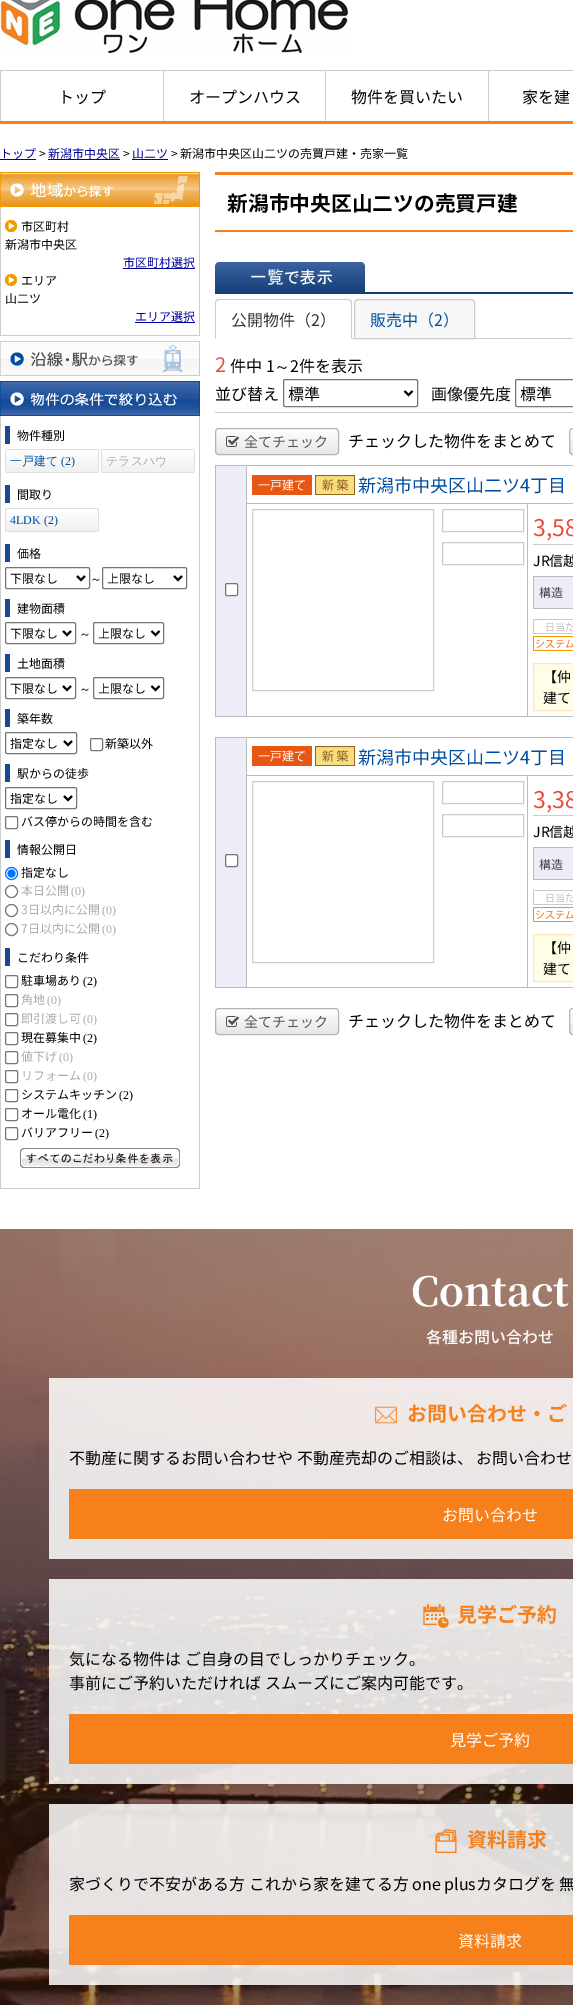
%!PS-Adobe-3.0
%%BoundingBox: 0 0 573 2005
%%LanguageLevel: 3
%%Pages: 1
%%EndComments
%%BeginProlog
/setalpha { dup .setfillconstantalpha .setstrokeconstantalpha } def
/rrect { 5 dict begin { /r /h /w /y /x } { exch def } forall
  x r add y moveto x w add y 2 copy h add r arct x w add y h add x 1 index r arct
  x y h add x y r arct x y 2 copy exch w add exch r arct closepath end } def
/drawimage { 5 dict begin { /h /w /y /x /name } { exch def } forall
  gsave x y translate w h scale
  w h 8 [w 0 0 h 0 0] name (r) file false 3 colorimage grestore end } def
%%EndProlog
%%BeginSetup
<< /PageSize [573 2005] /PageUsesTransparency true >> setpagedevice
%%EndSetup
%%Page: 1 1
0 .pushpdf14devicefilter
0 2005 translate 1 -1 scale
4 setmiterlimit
1 setgray
0 0 573 2005 rectfill
(images/1.raw) 0 0 348 54 drawimage
0.8 setgray
0 70 573 1 rectfill
0.965 0.502 0.11 setrgbcolor
0 121 573 3 rectfill
0.8 setgray
0 71 1 50 rectfill
163 71 1 50 rectfill
325 71 1 50 rectfill
488 71 1 50 rectfill
0 0 0.6 setrgbcolor
0 159 36 1 rectfill
48 159 72 1 rectfill
132 159 36 1 rectfill
(images/2.raw) 0 172 200 35 drawimage
0.8 setgray
199 207 1 129 rectfill
0 335 200 1 rectfill
0 207 1 129 rectfill
(images/3.raw) 5 220 12 12 drawimage
0 0 0.6 setrgbcolor
123 268 72 1 rectfill
(images/3.raw) 5 274 12 12 drawimage
135 322 60 1 rectfill
(images/4.raw) 0 341 200 35 drawimage
(images/5.raw) 0 381 200 35 drawimage
0.8 setgray
199 416 1 773 rectfill
0 1188 200 1 rectfill
0 416 1 773 rectfill
0.094 0.282 0.557 setrgbcolor
5 426 5 18 rectfill
(images/6.raw) 5 449 94 24 drawimage
(images/6.raw) 101 449 94 24 drawimage
5 485 5 18 rectfill
(images/6.raw) 5 508 94 24 drawimage
5 544 5 18 rectfill
0.463 setgray
5.5 567.5 84 21 1.5 rrect stroke
0 setgray
2 setlinewidth
newpath 77 576 moveto 81 580 lineto 85 576 lineto stroke
0.463 setgray
1 setlinewidth
102.5 567.5 84 21 1.5 rrect stroke
0 setgray
2 setlinewidth
newpath 174 576 moveto 178 580 lineto 182 576 lineto stroke
0.094 0.282 0.557 setrgbcolor
5 599 5 18 rectfill
0.463 setgray
1 setlinewidth
5.5 622.5 70 21 1.5 rrect stroke
0 setgray
2 setlinewidth
newpath 63 631 moveto 67 635 lineto 71 631 lineto stroke
0.463 setgray
1 setlinewidth
93.5 622.5 70 21 1.5 rrect stroke
0 setgray
2 setlinewidth
newpath 151.5 631 moveto 155.5 635 lineto 159.5 631 lineto stroke
0.094 0.282 0.557 setrgbcolor
5 654 5 18 rectfill
0.463 setgray
1 setlinewidth
5.5 677.5 70 21 1.5 rrect stroke
0 setgray
2 setlinewidth
newpath 63 686 moveto 67 690 lineto 71 686 lineto stroke
0.463 setgray
1 setlinewidth
93.5 677.5 70 21 1.5 rrect stroke
0 setgray
2 setlinewidth
newpath 151.5 686 moveto 155.5 690 lineto 159.5 686 lineto stroke
0.094 0.282 0.557 setrgbcolor
5 709 5 18 rectfill
0.463 setgray
1 setlinewidth
5.5 732.5 71 21 1.5 rrect stroke
0 setgray
2 setlinewidth
newpath 64 741 moveto 68 745 lineto 72 741 lineto stroke
0.463 setgray
1 setlinewidth
90.5 738.5 12 12 1.5 rrect stroke
0.094 0.282 0.557 setrgbcolor
5 764 5 18 rectfill
0.463 setgray
5.5 787.5 71 21 1.5 rrect stroke
0 setgray
2 setlinewidth
newpath 64 796 moveto 68 800 lineto 72 796 lineto stroke
0.463 setgray
1 setlinewidth
5.5 816.5 12 12 1.5 rrect stroke
0.094 0.282 0.557 setrgbcolor
5 840 5 18 rectfill
0 0.459 1 setrgbcolor
newpath 11.5 873.5 6 0 360 arc closepath stroke
newpath 11.5 873.5 4 0 360 arc closepath fill
0.463 setgray
newpath 11.5 891.5 6 0 360 arc closepath stroke
newpath 11.5 910.5 6 0 360 arc closepath stroke
newpath 11.5 929.5 6 0 360 arc closepath stroke
0.094 0.282 0.557 setrgbcolor
5 948 5 18 rectfill
0.463 setgray
5.5 975.5 12 12 1.5 rrect stroke
5.5 994.5 12 12 1.5 rrect stroke
5.5 1013.5 12 12 1.5 rrect stroke
5.5 1032.5 12 12 1.5 rrect stroke
5.5 1051.5 12 12 1.5 rrect stroke
5.5 1070.5 12 12 1.5 rrect stroke
5.5 1089.5 12 12 1.5 rrect stroke
5.5 1108.5 12 12 1.5 rrect stroke
5.5 1127.5 12 12 1.5 rrect stroke
(images/7.raw) 20 1148 160 20 drawimage
0.965 0.502 0.11 setrgbcolor
215 172 358 3 rectfill
215 230 358 2 rectfill
0.063 0.247 0.475 setrgbcolor
215 292 358 2 rectfill
(images/8.raw) 215 262 150 30 drawimage
0.8 setgray
352 338 221 1 rectfill
newpath 219 299 moveto 216 300 lineto 217 301 lineto 219 300 lineto 348 300 lineto 350 301 lineto 351 300 lineto 348 299 lineto closepath fill
newpath 352 339 moveto 352 303 lineto 352 302 351.5 301 351 300 curveto 350 301 lineto 351 301 351 302 351 303 curveto 351 338 lineto closepath fill
newpath 215 339 moveto 216 338 lineto 216 303 lineto 216 302 216 301 217 301 curveto 216 300 lineto 215.5 301 215 302 215 303 curveto closepath fill
0.973 setgray
newpath 358 299.5 moveto 471 299.5 lineto 473 299.5 474.5 301 474.5 303 curveto 474.5 338.5 lineto 354.5 338.5 lineto 354.5 303 lineto 354.5 301 356 299.5 358 299.5 curveto closepath gsave fill grestore
0.8 setgray
stroke
215 412 358 1 rectfill
0.463 setgray
283.5 379.5 134 27 1.5 rrect stroke
0 setgray
2 setlinewidth
newpath 404.5 391 moveto 408.5 395 lineto 412.5 391 lineto stroke
0.463 setgray
1 setlinewidth
515.5 379.5 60 27 1.5 rrect stroke
gsave
215 428 124 27 4 rrect clip newpath
gsave newpath 215 429 moveto 339 429 lineto 339 454 lineto 215 454 lineto closepath clip newpath
<< /ShadingType 2 /ColorSpace /DeviceRGB /Coords [277 429 277 454] /Extend [true true] /Function << /FunctionType 2 /Domain [0 1] /C0 [1 1 1] /C1 [0.902 0.902 0.902] /N 1 >> >> shfill grestore
grestore
0.706 setgray
215.5 428.5 123 26 3.5 rrect stroke
(images/9.raw) 226 436 13 11 drawimage
gsave
569 428 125 27 4 rrect clip newpath
gsave newpath 569 429 moveto 573 429 lineto 573 454 lineto 569 454 lineto closepath clip newpath
<< /ShadingType 2 /ColorSpace /DeviceRGB /Coords [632 429 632 454] /Extend [true true] /Function << /FunctionType 2 /Domain [0 1] /C0 [1 1 1] /C1 [0.902 0.902 0.902] /N 1 >> >> shfill grestore
grestore
569.5 428.5 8 26 3.5 rrect stroke
0.929 0.929 0.973 setrgbcolor
216 466 30 250 rectfill
0.733 setgray
246 465 327 1 rectfill
527 503 46 1 rectfill
527 716 46 1 rectfill
527 503 1 214 rectfill
246 503 282 1 rectfill
246 716 282 1 rectfill
246 503 1 214 rectfill
246 465 1 39 rectfill
215 465 32 1 rectfill
215 716 32 1 rectfill
215 465 1 252 rectfill
1 setgray
225.5 583.5 12 12 1.5 rrect gsave fill grestore
0.463 setgray
stroke
(images/10.raw) 252 475 60 20 drawimage
(images/11.raw) 315 475 40 20 drawimage
0.8 setgray
252.5 509.5 181 181 rectstroke
442.5 509.5 81 22 rectstroke
442.5 542.5 81 22 rectstroke
533 544 40 1 rectfill
0.929 0.929 0.973 setrgbcolor
534 577 39 31 rectfill
0.733 setgray
533 576 40 1 rectfill
533 608 40 1 rectfill
533 576 1 33 rectfill
(images/12.raw) 533 619 40 15 drawimage
(images/13.raw) 533 636 40 15 drawimage
1 0.992 0.898 setrgbcolor
newpath 533.5 663.5 moveto 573.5 663.5 lineto 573.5 710.5 lineto 533.5 710.5 lineto closepath gsave fill grestore
0.992 0.902 0.729 setrgbcolor
stroke
0.929 0.929 0.973 setrgbcolor
216 738 30 249 rectfill
0.733 setgray
246 737 327 1 rectfill
527 775 46 1 rectfill
527 987 46 1 rectfill
527 775 1 213 rectfill
246 775 282 1 rectfill
246 987 282 1 rectfill
246 775 1 213 rectfill
246 737 1 39 rectfill
215 737 32 1 rectfill
215 987 32 1 rectfill
215 737 1 251 rectfill
1 setgray
225.5 854.5 12 12 1.5 rrect gsave fill grestore
0.463 setgray
stroke
(images/10.raw) 252 746 60 20 drawimage
(images/11.raw) 315 746 40 20 drawimage
0.8 setgray
252.5 781.5 181 181 rectstroke
442.5 781.5 81 22 rectstroke
442.5 814.5 81 22 rectstroke
533 815 40 1 rectfill
0.929 0.929 0.973 setrgbcolor
534 848 39 31 rectfill
0.733 setgray
533 847 40 1 rectfill
533 879 40 1 rectfill
533 847 1 33 rectfill
(images/12.raw) 533 890 40 15 drawimage
(images/13.raw) 533 907 40 15 drawimage
1 0.992 0.898 setrgbcolor
newpath 533.5 934.5 moveto 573.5 934.5 lineto 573.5 981.5 lineto 533.5 981.5 lineto closepath gsave fill grestore
0.992 0.902 0.729 setrgbcolor
stroke
gsave
215 1008 124 27 4 rrect clip newpath
gsave newpath 215 1009 moveto 339 1009 lineto 339 1034 lineto 215 1034 lineto closepath clip newpath
<< /ShadingType 2 /ColorSpace /DeviceRGB /Coords [277 1009 277 1034] /Extend [true true] /Function << /FunctionType 2 /Domain [0 1] /C0 [1 1 1] /C1 [0.902 0.902 0.902] /N 1 >> >> shfill grestore
grestore
0.706 setgray
215.5 1008.5 123 26 3.5 rrect stroke
(images/9.raw) 226 1016 13 11 drawimage
gsave
569 1008 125 27 4 rrect clip newpath
gsave newpath 569 1009 moveto 573 1009 lineto 573 1034 lineto 569 1034 lineto closepath clip newpath
<< /ShadingType 2 /ColorSpace /DeviceRGB /Coords [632 1009 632 1034] /Extend [true true] /Function << /FunctionType 2 /Domain [0 1] /C0 [1 1 1] /C1 [0.902 0.902 0.902] /N 1 >> >> shfill grestore
grestore
569.5 1008.5 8 26 3.5 rrect stroke
(images/14.raw) 0 1229 573 776 drawimage
0.85 setalpha
1 setgray
49 1378 524 181 rectfill
1 setalpha
(images/15.raw) 375 1406 22 18 drawimage
0.965 0.502 0.11 setrgbcolor
69 1489 504 50 rectfill
0.85 setalpha
1 setgray
49 1579 524 205 rectfill
1 setalpha
(images/16.raw) 423 1604 26 24 drawimage
0.965 0.502 0.11 setrgbcolor
69 1714 504 50 rectfill
0.85 setalpha
1 setgray
49 1804 524 181 rectfill
1 setalpha
(images/17.raw) 435 1829 22 24 drawimage
0.965 0.502 0.11 setrgbcolor
69 1915 504 50 rectfill
/NotoSansJP-Regular [16 0 0 -16 0 0] selectfont
0 setgray
58 103 moveto (トップ) show
189 103 moveto (オープンハウス) show
351 103 moveto (物件を買いたい) show
522 103 moveto (家を建) show
/NotoSansJP-Regular [12 0 0 -12 0 0] selectfont
0 0 0.6 setrgbcolor
0 158 moveto (トップ) show
0 setgray
39 158 moveto (>) show
0 0 0.6 setrgbcolor
48 158 moveto (新潟市中央区) show
0 setgray
123 158 moveto (>) show
0 0 0.6 setrgbcolor
132 158 moveto (山二ツ) show
0 setgray
171 158 moveto (> 新潟市中央区山二ツの売買戸建・売家一覧) show
21 231 moveto (市区町村) show
5 249 moveto (新潟市中央区) show
0 0 0.6 setrgbcolor
123 267 moveto (市区町村選択) show
0 setgray
21 285 moveto (エリア) show
5 303 moveto (山二ツ) show
0 0 0.6 setrgbcolor
135 321 moveto (エリア選択) show
0 setgray
17 440 moveto (物件種別) show
/WenQuanYiZenHei-Medium [12 0 0 -12 0 0] selectfont
0 0.306 0.635 setrgbcolor
10 465 moveto (一戸建て) show
/LiberationSerif-Regular [12 0 0 -12 0 0] selectfont
61 465 moveto (\(2\)) show
/WenQuanYiZenHei-Medium [12 0 0 -12 0 0] selectfont
0.667 setgray
106 465 moveto (テラスハウ) show
/NotoSansJP-Regular [12 0 0 -12 0 0] selectfont
0 setgray
17 499 moveto (間取り) show
/LiberationSerif-Regular [12 0 0 -12 0 0] selectfont
0 0.306 0.635 setrgbcolor
10 524 moveto (4LDK \(2\)) show
/NotoSansJP-Regular [12 0 0 -12 0 0] selectfont
0 setgray
17 558 moveto (価格) show
10 583 moveto (下限なし) show
/WenQuanYiZenHei-Medium [12 0 0 -12 0 0] selectfont
90 583 moveto (～) show
/NotoSansJP-Regular [12 0 0 -12 0 0] selectfont
107 583 moveto (上限なし) show
17 613 moveto (建物面積) show
10 638 moveto (下限なし) show
/WenQuanYiZenHei-Medium [12 0 0 -12 0 0] selectfont
79 638 moveto (～) show
/NotoSansJP-Regular [12 0 0 -12 0 0] selectfont
98 638 moveto (上限なし) show
17 668 moveto (土地面積) show
10 693 moveto (下限なし) show
/WenQuanYiZenHei-Medium [12 0 0 -12 0 0] selectfont
79 693 moveto (～) show
/NotoSansJP-Regular [12 0 0 -12 0 0] selectfont
98 693 moveto (上限なし) show
17 723 moveto (築年数) show
10 748 moveto (指定なし) show
105 748 moveto (新築以外) show
17 778 moveto (駅からの徒歩) show
10 803 moveto (指定なし) show
21 826 moveto (バス停からの時間を含む) show
17 854 moveto (情報公開日) show
21 877 moveto (指定なし) show
0.667 setgray
21 895 moveto (本日公開) show
/LiberationSerif-Regular [12 0 0 -12 0 0] selectfont
71 895 moveto (\(0\)) show
/NotoSansJP-Regular [12 0 0 -12 0 0] selectfont
21 914 moveto (3日以内に公開) show
/LiberationSerif-Regular [12 0 0 -12 0 0] selectfont
102 914 moveto (\(0\)) show
/NotoSansJP-Regular [12 0 0 -12 0 0] selectfont
21 933 moveto (7日以内に公開) show
/LiberationSerif-Regular [12 0 0 -12 0 0] selectfont
102 933 moveto (\(0\)) show
/NotoSansJP-Regular [12 0 0 -12 0 0] selectfont
0 setgray
17 962 moveto (こだわり条件) show
21 985 moveto (駐車場あり) show
/LiberationSerif-Regular [12 0 0 -12 0 0] selectfont
83 985 moveto (\(2\)) show
/NotoSansJP-Regular [12 0 0 -12 0 0] selectfont
0.667 setgray
21 1004 moveto (角地) show
/LiberationSerif-Regular [12 0 0 -12 0 0] selectfont
47 1004 moveto (\(0\)) show
/NotoSansJP-Regular [12 0 0 -12 0 0] selectfont
21 1023 moveto (即引渡し可) show
/LiberationSerif-Regular [12 0 0 -12 0 0] selectfont
83 1023 moveto (\(0\)) show
/NotoSansJP-Regular [12 0 0 -12 0 0] selectfont
0 setgray
21 1042 moveto (現在募集中) show
/LiberationSerif-Regular [12 0 0 -12 0 0] selectfont
83 1042 moveto (\(2\)) show
/NotoSansJP-Regular [12 0 0 -12 0 0] selectfont
0.667 setgray
21 1061 moveto (値下げ) show
/LiberationSerif-Regular [12 0 0 -12 0 0] selectfont
59 1061 moveto (\(0\)) show
/NotoSansJP-Regular [12 0 0 -12 0 0] selectfont
21 1080 moveto (リフォーム) show
/LiberationSerif-Regular [12 0 0 -12 0 0] selectfont
83 1080 moveto (\(0\)) show
/NotoSansJP-Regular [12 0 0 -12 0 0] selectfont
0 setgray
21 1099 moveto (システムキッチン) show
/LiberationSerif-Regular [12 0 0 -12 0 0] selectfont
119 1099 moveto (\(2\)) show
/NotoSansJP-Regular [12 0 0 -12 0 0] selectfont
21 1118 moveto (オール電化) show
/LiberationSerif-Regular [12 0 0 -12 0 0] selectfont
83 1118 moveto (\(1\)) show
/NotoSansJP-Regular [12 0 0 -12 0 0] selectfont
21 1137 moveto (バリアフリー) show
/LiberationSerif-Regular [12 0 0 -12 0 0] selectfont
95 1137 moveto (\(2\)) show
/NotoSansJP-Bold [20.75 0 0 -20.75 0 0] selectfont
227 211 moveto (新潟市中央区山二ツの売買戸建) show
/NotoSansJP-Regular [16 0 0 -16 0 0] selectfont
0.2 setgray
231 326 moveto (公開物件（2）) show
0 0.306 0.635 setrgbcolor
370 326 moveto (販売中（2）) show
/NotoSansJP-Regular [20 0 0 -20 0 0] selectfont
0.906 0.298 0.235 setrgbcolor
215 372 moveto (2) show
/NotoSansJP-Regular [16 0 0 -16 0 0] selectfont
0 setgray
230 372 moveto (件中 1) show
/WenQuanYiZenHei-Medium [16 0 0 -16 0 0] selectfont
274 372 moveto (～) show
/NotoSansJP-Regular [16 0 0 -16 0 0] selectfont
290 372 moveto (2件を表示) show
215 400 moveto (並び替え) show
288 400 moveto (標準) show
431 400 moveto (画像優先度) show
520 400 moveto (標準) show
/NotoSansJP-Regular [14 0 0 -14 0 0] selectfont
0.314 setgray
244 447 moveto (全てチェック) show
/NotoSansJP-Regular [16 0 0 -16 0 0] selectfont
0 setgray
348 447 moveto (チェックした物件をまとめて) show
/NotoSansJP-Regular [18 0 0 -18 0 0] selectfont
0 0.306 0.635 setrgbcolor
358 492 moveto (新潟市中央区山二ツ4丁目) show
/NotoSansJP-Regular [23 0 0 -23 0 0] selectfont
0.906 0.298 0.235 setrgbcolor
533 536 moveto (3,58) show
/NotoSansJP-Regular [14 0 0 -14 0 0] selectfont
0 setgray
533 566 moveto (JR信越) show
/NotoSansJP-Regular [12 0 0 -12 0 0] selectfont
0.267 setgray
539 597 moveto (構造) show
/NotoSansJP-Regular [14 0 0 -14 0 0] selectfont
0 setgray
543 682 moveto (【仲) show
543 703 moveto (建て) show
/NotoSansJP-Regular [18 0 0 -18 0 0] selectfont
0 0.306 0.635 setrgbcolor
358 764 moveto (新潟市中央区山二ツ4丁目) show
/NotoSansJP-Regular [23 0 0 -23 0 0] selectfont
0.906 0.298 0.235 setrgbcolor
533 808 moveto (3,38) show
/NotoSansJP-Regular [14 0 0 -14 0 0] selectfont
0 setgray
533 837 moveto (JR信越) show
/NotoSansJP-Regular [12 0 0 -12 0 0] selectfont
0.267 setgray
539 869 moveto (構造) show
/NotoSansJP-Regular [14 0 0 -14 0 0] selectfont
0 setgray
543 953 moveto (【仲) show
543 974 moveto (建て) show
0.314 setgray
244 1027 moveto (全てチェック) show
/NotoSansJP-Regular [16 0 0 -16 0 0] selectfont
0 setgray
348 1027 moveto (チェックした物件をまとめて) show
/NotoSerifJP-Bold [40 0 0 -40 0 0] selectfont
1 setgray
411 1306 moveto (Contact) show
/NotoSansJP-Medium [16 0 0 -16 0 0] selectfont
426 1343 moveto (各種お問い合わせ) show
/NotoSansJP-Bold [20 0 0 -20 0 0] selectfont
0.965 0.502 0.11 setrgbcolor
407 1421 moveto (お問い合わせ・ご) show
/NotoSansJP-Regular [16 0 0 -16 0 0] selectfont
0 setgray
69 1464 moveto (不動産に関するお問い合わせや 不動産売却のご相談は、 お問い合わせ) show
1 setgray
442 1521 moveto (お問い合わせ) show
/NotoSansJP-Bold [20 0 0 -20 0 0] selectfont
0.965 0.502 0.11 setrgbcolor
457 1622 moveto (見学ご予約) show
/NotoSansJP-Regular [16 0 0 -16 0 0] selectfont
0 setgray
69 1665 moveto (気になる物件は ご自身の目でしっかりチェック。) show
69 1689 moveto (事前にご予約いただければ スムーズにご案内可能です。) show
1 setgray
450 1746 moveto (見学ご予約) show
/NotoSansJP-Bold [20 0 0 -20 0 0] selectfont
0.965 0.502 0.11 setrgbcolor
467 1847 moveto (資料請求) show
/NotoSansJP-Regular [16 0 0 -16 0 0] selectfont
0 setgray
69 1890 moveto (家づくりで不安がある方 これから家を建てる方 one plusカタログを 無) show
1 setgray
458 1947 moveto (資料請求) show
.poppdf14devicefilter showpage
%%EOF
